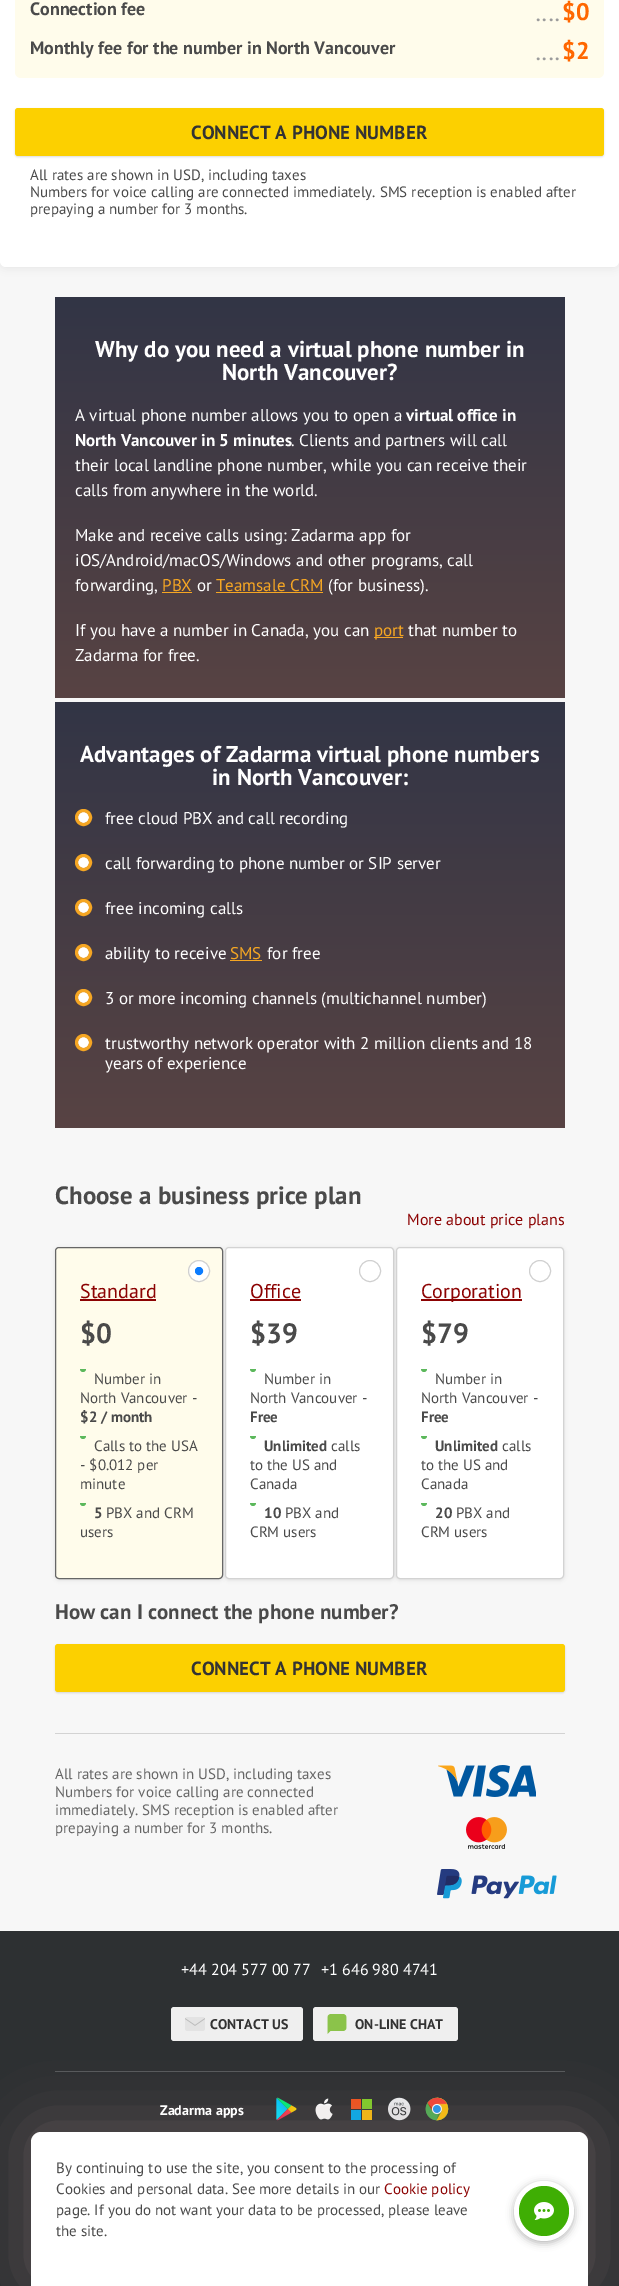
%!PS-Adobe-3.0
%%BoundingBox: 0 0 619 2286
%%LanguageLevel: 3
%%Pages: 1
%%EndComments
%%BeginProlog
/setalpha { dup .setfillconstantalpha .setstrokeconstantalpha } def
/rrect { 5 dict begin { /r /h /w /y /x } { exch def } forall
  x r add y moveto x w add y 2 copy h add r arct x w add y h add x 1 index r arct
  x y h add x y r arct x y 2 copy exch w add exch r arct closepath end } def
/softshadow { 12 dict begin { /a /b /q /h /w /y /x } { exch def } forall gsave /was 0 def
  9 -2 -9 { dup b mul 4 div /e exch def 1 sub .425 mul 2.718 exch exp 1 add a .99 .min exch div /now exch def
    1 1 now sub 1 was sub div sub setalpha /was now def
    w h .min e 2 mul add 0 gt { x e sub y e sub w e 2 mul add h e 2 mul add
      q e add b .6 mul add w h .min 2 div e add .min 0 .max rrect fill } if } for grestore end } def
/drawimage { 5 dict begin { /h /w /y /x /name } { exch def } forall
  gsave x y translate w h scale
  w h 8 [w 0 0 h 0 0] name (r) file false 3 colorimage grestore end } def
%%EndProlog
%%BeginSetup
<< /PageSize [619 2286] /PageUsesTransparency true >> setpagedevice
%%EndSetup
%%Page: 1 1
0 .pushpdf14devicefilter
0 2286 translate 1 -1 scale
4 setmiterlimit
0.969 setgray
0 0 619 2286 rectfill
0 setgray
0 -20 619 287 6 4.5 0.08 softshadow
1 setgray
0 -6 619 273 6 rrect fill
1 0.988 0.922 setrgbcolor
15 -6 589 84 6 rrect fill
0 setgray
15 109 589 48 3 1 0.14 softshadow
0.988 0.816 0 setrgbcolor
15 108 589 48 3 rrect fill
gsave newpath 55 297 moveto 565 297 lineto 565 698 lineto 55 698 lineto closepath clip newpath
<< /ShadingType 2 /ColorSpace /DeviceRGB /Coords [310 297 310 698] /Extend [true true] /Function << /FunctionType 2 /Domain [0 1] /C0 [0.196 0.208 0.275] /C1 [0.345 0.263 0.263] /N 1 >> >> shfill grestore
0.961 0.651 0.137 setrgbcolor
162 592 30 1 rectfill
216 592 107 1 rectfill
374 637 29 1 rectfill
gsave newpath 55 702 moveto 565 702 lineto 565 1128 lineto 55 1128 lineto closepath clip newpath
<< /ShadingType 2 /ColorSpace /DeviceRGB /Coords [310 702 310 1128] /Extend [true true] /Function << /FunctionType 2 /Domain [0 1] /C0 [0.196 0.208 0.275] /C1 [0.345 0.263 0.263] /N 1 >> >> shfill grestore
1 setgray
newpath 83.5 817.5 5.5 0 360 arc closepath fill
0.961 0.651 0.137 setrgbcolor
3 setlinewidth
newpath 83.5 817.5 7 0 360 arc closepath stroke
1 setgray
newpath 83.5 862.5 5.5 0 360 arc closepath fill
0.961 0.651 0.137 setrgbcolor
newpath 83.5 862.5 7 0 360 arc closepath stroke
1 setgray
newpath 83.5 907.5 5.5 0 360 arc closepath fill
0.961 0.651 0.137 setrgbcolor
newpath 83.5 907.5 7 0 360 arc closepath stroke
1 setgray
newpath 83.5 952.5 5.5 0 360 arc closepath fill
0.961 0.651 0.137 setrgbcolor
newpath 83.5 952.5 7 0 360 arc closepath stroke
230 960 32 1 rectfill
1 setgray
newpath 83.5 997.5 5.5 0 360 arc closepath fill
0.961 0.651 0.137 setrgbcolor
newpath 83.5 997.5 7 0 360 arc closepath stroke
1 setgray
newpath 83.5 1042.5 5.5 0 360 arc closepath fill
0.961 0.651 0.137 setrgbcolor
newpath 83.5 1042.5 7 0 360 arc closepath stroke
0 setgray
55 1248 168 332 4 2 0.1 softshadow
1 0.988 0.922 setrgbcolor
55.5 1247.5 167 331 3.5 rrect gsave fill grestore
0.4 setgray
1 setlinewidth
stroke
1 setgray
newpath 199 1271 10.5 0 360 arc closepath gsave fill grestore
0.816 setgray
stroke
0.043 0.486 1 setrgbcolor
newpath 199 1271 3.5 0 360 arc closepath gsave fill grestore
stroke
0.549 0.012 0.012 setrgbcolor
80 1299 76 2 rectfill
gsave
80 1369 6 3 rectclip
0.361 0.722 0.361 setrgbcolor
newpath 83 1369 3 0 360 arc closepath fill
grestore
gsave
80 1436 6 3 rectclip
0.361 0.722 0.361 setrgbcolor
newpath 83 1436 3 0 360 arc closepath fill
grestore
gsave
80 1503 6 3 rectclip
0.361 0.722 0.361 setrgbcolor
newpath 83 1503 3 0 360 arc closepath fill
grestore
0 setgray
225 1248 169 332 4 2 0.1 softshadow
1 setgray
225.5 1247.5 168 331 3.5 rrect gsave fill grestore
0.827 setgray
stroke
0.816 setgray
newpath 370 1271 10.5 0 360 arc closepath stroke
0.549 0.012 0.012 setrgbcolor
250 1299 51 2 rectfill
gsave
250 1369 6 3 rectclip
0.361 0.722 0.361 setrgbcolor
newpath 253 1369 3 0 360 arc closepath fill
grestore
gsave
250 1436 6 3 rectclip
0.361 0.722 0.361 setrgbcolor
newpath 253 1436 3 0 360 arc closepath fill
grestore
gsave
250 1503 6 3 rectclip
0.361 0.722 0.361 setrgbcolor
newpath 253 1503 3 0 360 arc closepath fill
grestore
0 setgray
396 1248 168 332 4 2 0.1 softshadow
1 setgray
396.5 1247.5 167 331 3.5 rrect gsave fill grestore
0.827 setgray
stroke
0.816 setgray
newpath 540 1271 10.5 0 360 arc closepath stroke
0.549 0.012 0.012 setrgbcolor
421 1299 101 2 rectfill
gsave
421 1369 6 3 rectclip
0.361 0.722 0.361 setrgbcolor
newpath 424 1369 3 0 360 arc closepath fill
grestore
gsave
421 1436 6 3 rectclip
0.361 0.722 0.361 setrgbcolor
newpath 424 1436 3 0 360 arc closepath fill
grestore
gsave
421 1503 6 3 rectclip
0.361 0.722 0.361 setrgbcolor
newpath 424 1503 3 0 360 arc closepath fill
grestore
0 setgray
55 1645 510 48 3 1 0.14 softshadow
0.988 0.816 0 setrgbcolor
55 1644 510 48 3 rrect fill
0.827 setgray
55 1733 510 1 rectfill
(images/1.raw) 438 1765 98 32 drawimage
(images/2.raw) 466 1817 41 32 drawimage
(images/3.raw) 437 1869 120 30 drawimage
0.176 0.188 0.196 setrgbcolor
0 1931 619 355 rectfill
0.341 0.349 0.357 setrgbcolor
55 2071 510 1 rectfill
0.937 setgray
171 2007 132 34 3 rrect fill
(images/4.raw) 185 2017 20 14 drawimage
313 2007 145 34 3 rrect fill
(images/5.raw) 327 2014 20 20 drawimage
(images/6.raw) 276 2097 173 24 drawimage
0.604 0.518 0.525 setrgbcolor
31 2128 557 154 10 30 0.43 softshadow
1 setgray
newpath 41 2132 moveto 578 2132 lineto 583.5 2132 588 2136.5 588 2142 curveto 588 2286 lineto 31 2286 lineto 31 2142 lineto 31 2136.5 35.5 2132 41 2132 curveto closepath fill
0 setgray
514 2183 60 60 30 4 0.3 softshadow
1 setgray
newpath 544 2211 30 0 360 arc closepath fill
0.247 0.682 0.016 setrgbcolor
newpath 544 2211 25 0 360 arc closepath fill
(images/7.raw) 534 2202 20 18 drawimage
/PTSans-Bold [18 0 0 -18 0 0] selectfont
0.29 setgray
30 15 moveto (Connection fee) show
0.608 setgray
536 21 moveto 2 0 (....) ashow
/PTSans-Bold [24 0 0 -24 0 0] selectfont
1 0.404 0 setrgbcolor
562 20 moveto ($0) show
/PTSans-Bold [18 0 0 -18 0 0] selectfont
0.29 setgray
30 54 moveto (Monthly fee for the number in North Vancouver) show
0.608 setgray
536 60 moveto 2 0 (....) ashow
/PTSans-Bold [24 0 0 -24 0 0] selectfont
1 0.404 0 setrgbcolor
562 59 moveto ($2) show
/PTSans-Bold [19 0 0 -19 0 0] selectfont
0.2 setgray
191 139 moveto (CONNECT A PHONE NUMBER) show
/PTSans-Regular [15 0 0 -15 0 0] selectfont
0.29 setgray
30 180 moveto (All rates are shown in USD, including taxes) show
30 197 moveto (Numbers for voice calling are connected immediately. SMS reception is enabled after) show
30 214 moveto (prepaying a number for 3 months.) show
/PTSans-Bold [23 0 0 -23 0 0] selectfont
1 setgray
95 357 moveto (Why do you need a virtual phone number in) show
222 380 moveto (North Vancouver?) show
/PTSans-Regular [17 0 0 -17 0 0] selectfont
75 421 moveto (A virtual phone number allows you to open a) show
/PTSans-Bold [17 0 0 -17 0 0] selectfont
406 421 moveto (virtual office in) show
75 446 moveto (North Vancouver in 5 minutes) show
/PTSans-Regular [17 0 0 -17 0 0] selectfont
291 446 moveto (. Clients and partners will call) show
75 471 moveto (their local landline phone number, while you can receive their) show
75 496 moveto (calls from anywhere in the world.) show
75 541 moveto (Make and receive calls using: Zadarma app for) show
75 566 moveto (iOS/Android/macOS/Windows and other programs, call) show
75 591 moveto (forwarding,) show
0.961 0.651 0.137 setrgbcolor
162 591 moveto (PBX) show
1 setgray
197 591 moveto (or) show
0.961 0.651 0.137 setrgbcolor
216 591 moveto (Teamsale CRM) show
1 setgray
328 591 moveto (\(for business\).) show
75 636 moveto (If you have a number in Canada, you can) show
0.961 0.651 0.137 setrgbcolor
374 636 moveto (port) show
1 setgray
408 636 moveto (that number to) show
75 661 moveto (Zadarma for free.) show
/PTSans-Bold [23 0 0 -23 0 0] selectfont
80 762 moveto (Advantages of Zadarma virtual phone numbers) show
212 785 moveto (in North Vancouver:) show
/PTSans-Regular [17 0 0 -17 0 0] selectfont
105 824 moveto (free cloud PBX and call recording) show
105 869 moveto (call forwarding to phone number or SIP server) show
105 914 moveto (free incoming calls) show
105 959 moveto (ability to receive) show
0.961 0.651 0.137 setrgbcolor
230 959 moveto (SMS) show
1 setgray
267 959 moveto (for free) show
105 1004 moveto (3 or more incoming channels \(multichannel number\)) show
105 1049 moveto (trustworthy network operator with 2 million clients and 18) show
105 1069 moveto (years of experience) show
/PTSans-Bold [25 0 0 -25 0 0] selectfont
0.29 setgray
55 1204 moveto (Choose a business price plan) show
/PTSans-Regular [16 0 0 -16 0 0] selectfont
0.549 0.012 0.012 setrgbcolor
407 1225 moveto (More about price plans) show
/PTSans-Regular [20 0 0 -20 0 0] selectfont
80 1298 moveto (Standard) show
/PTSans-Bold [28 0 0 -28 0 0] selectfont
0.29 setgray
80 1343 moveto ($0) show
/PTSans-Regular [15 0 0 -15 0 0] selectfont
94 1384 moveto (Number in) show
80 1403 moveto (North Vancouver -) show
/PTSans-Bold [15 0 0 -15 0 0] selectfont
80 1422 moveto ($2 / month) show
/PTSans-Regular [15 0 0 -15 0 0] selectfont
94 1451 moveto (Calls to the USA) show
80 1470 moveto (- $0.012 per) show
80 1489 moveto (minute) show
/PTSans-Bold [15 0 0 -15 0 0] selectfont
94 1518 moveto (5) show
/PTSans-Regular [15 0 0 -15 0 0] selectfont
106 1518 moveto (PBX and CRM) show
80 1537 moveto (users) show
/PTSans-Regular [20 0 0 -20 0 0] selectfont
0.549 0.012 0.012 setrgbcolor
250 1298 moveto (Office) show
/PTSans-Bold [28 0 0 -28 0 0] selectfont
0.29 setgray
250 1343 moveto ($39) show
/PTSans-Regular [15 0 0 -15 0 0] selectfont
264 1384 moveto (Number in) show
250 1403 moveto (North Vancouver -) show
/PTSans-Bold [15 0 0 -15 0 0] selectfont
250 1422 moveto (Free) show
264 1451 moveto (Unlimited) show
/PTSans-Regular [15 0 0 -15 0 0] selectfont
331 1451 moveto (calls) show
250 1470 moveto (to the US and) show
250 1489 moveto (Canada) show
/PTSans-Bold [15 0 0 -15 0 0] selectfont
264 1518 moveto (10) show
/PTSans-Regular [15 0 0 -15 0 0] selectfont
285 1518 moveto (PBX and) show
250 1537 moveto (CRM users) show
/PTSans-Regular [20 0 0 -20 0 0] selectfont
0.549 0.012 0.012 setrgbcolor
421 1298 moveto (Corporation) show
/PTSans-Bold [28 0 0 -28 0 0] selectfont
0.29 setgray
421 1343 moveto ($79) show
/PTSans-Regular [15 0 0 -15 0 0] selectfont
435 1384 moveto (Number in) show
421 1403 moveto (North Vancouver -) show
/PTSans-Bold [15 0 0 -15 0 0] selectfont
421 1422 moveto (Free) show
435 1451 moveto (Unlimited) show
/PTSans-Regular [15 0 0 -15 0 0] selectfont
502 1451 moveto (calls) show
421 1470 moveto (to the US and) show
421 1489 moveto (Canada) show
/PTSans-Bold [15 0 0 -15 0 0] selectfont
435 1518 moveto (20) show
/PTSans-Regular [15 0 0 -15 0 0] selectfont
456 1518 moveto (PBX and) show
421 1537 moveto (CRM users) show
/PTSans-Bold [21 0 0 -21 0 0] selectfont
55 1619 moveto (How can I connect the phone number?) show
/PTSans-Bold [19 0 0 -19 0 0] selectfont
0.2 setgray
191 1675 moveto (CONNECT A PHONE NUMBER) show
/PTSans-Regular [15 0 0 -15 0 0] selectfont
0.4 setgray
55 1779 moveto (All rates are shown in USD, including taxes) show
55 1797 moveto (Numbers for voice calling are connected) show
55 1815 moveto (immediately. SMS reception is enabled after) show
55 1833 moveto (prepaying a number for 3 months.) show
/PTSans-Regular [16 0 0 -16 0 0] selectfont
1 setgray
181 1975 moveto (+44 204 577 00 77) show
321 1975 moveto (+1 646 980 4741) show
/PTSans-Bold [14 0 0 -14 0 0] selectfont
0.2 setgray
210 2029 moveto (CONTACT US) show
355 2029 moveto (ON-LINE CHAT) show
1 setgray
160 2115 moveto (Zadarma apps) show
/PTSans-Regular [15 0 0 -15 0 0] selectfont
0.29 setgray
56 2173 moveto (By continuing to use the site, you consent to the processing of) show
56 2194 moveto (Cookies and personal data. See more details in our) show
0.549 0.012 0.012 setrgbcolor
384 2194 moveto (Cookie рolicy) show
0.29 setgray
56 2215 moveto (page. If you do not want your data to be processed, please leave) show
56 2236 moveto (the site.) show
.poppdf14devicefilter showpage
%%EOF
